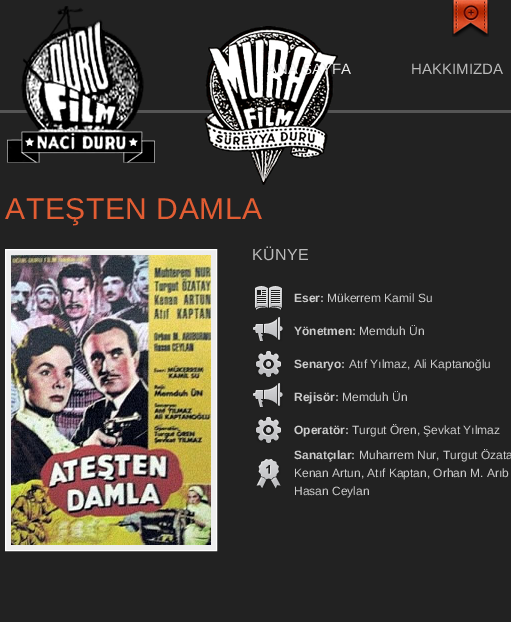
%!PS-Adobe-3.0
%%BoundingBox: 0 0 511 622
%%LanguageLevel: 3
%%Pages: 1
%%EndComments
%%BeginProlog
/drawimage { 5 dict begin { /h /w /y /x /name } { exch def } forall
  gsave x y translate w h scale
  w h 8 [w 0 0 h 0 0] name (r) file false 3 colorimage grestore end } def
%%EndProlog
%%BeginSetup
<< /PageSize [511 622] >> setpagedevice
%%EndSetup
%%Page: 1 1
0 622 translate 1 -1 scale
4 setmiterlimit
0.133 setgray
0 0 511 622 rectfill
0.333 setgray
0 110 511 3 rectfill
(images/1.raw) 452 0 37 37 drawimage
(images/2.raw) 452 0 37 37 drawimage
(images/3.raw) 7 6 331 179 drawimage
0.933 setgray
newpath 5.5 249.5 moveto 216.5 249.5 lineto 216.5 550.5 lineto 5.5 550.5 lineto closepath gsave fill grestore
1 setgray
stroke
(images/4.raw) 11 255 200 290 drawimage
(images/5.raw) 255 286 28 24 drawimage
(images/6.raw) 253 317 30 25 drawimage
(images/7.raw) 255 351 26 27 drawimage
(images/6.raw) 253 383 30 25 drawimage
(images/7.raw) 255 417 26 27 drawimage
(images/8.raw) 256 459 25 30 drawimage
/LiberationSans-Regular [15 0 0 -15 0 0] selectfont
0.933 setgray
267 74 moveto (ANA SAYFA) show
0.733 setgray
411 74 moveto (HAKKIMIZDA) show
/LiberationSans-Regular [30 0 0 -30 0 0] selectfont
0.886 0.365 0.2 setrgbcolor
5 219 moveto 0.6 0 (ATEŞTEN DAMLA) ashow
/LiberationSans-Regular [16 0 0 -16 0 0] selectfont
0.733 setgray
252 260 moveto 0.5 0 (KÜNYE) ashow
/LiberationSans-Bold [12 0 0 -12 0 0] selectfont
0.8 setgray
294 302 moveto (Eser:) show
/LiberationSans-Regular [12 0 0 -12 0 0] selectfont
327 302 moveto (Mükerrem Kamil Su) show
/LiberationSans-Bold [12 0 0 -12 0 0] selectfont
294 335 moveto (Yönetmen:) show
/LiberationSans-Regular [12 0 0 -12 0 0] selectfont
359 335 moveto (Memduh Ün) show
/LiberationSans-Bold [12 0 0 -12 0 0] selectfont
294 368 moveto (Senaryo:) show
/LiberationSans-Regular [12 0 0 -12 0 0] selectfont
349 368 moveto (Atıf Yılmaz, Ali Kaptanoğlu) show
/LiberationSans-Bold [12 0 0 -12 0 0] selectfont
294 401 moveto (Rejisör:) show
/LiberationSans-Regular [12 0 0 -12 0 0] selectfont
342 401 moveto (Memduh Ün) show
/LiberationSans-Bold [12 0 0 -12 0 0] selectfont
294 434 moveto (Operatör:) show
/LiberationSans-Regular [12 0 0 -12 0 0] selectfont
352 434 moveto (Turgut Ören, Şevkat Yılmaz) show
/LiberationSans-Bold [12 0 0 -12 0 0] selectfont
294 459 moveto (Sanatçılar:) show
/LiberationSans-Regular [12 0 0 -12 0 0] selectfont
359 459 moveto (Muharrem Nur, Turgut Özata) show
294 477 moveto (Kenan Artun, Atıf Kaptan, Orhan M. Arıb) show
294 495 moveto (Hasan Ceylan) show
showpage
%%EOF
